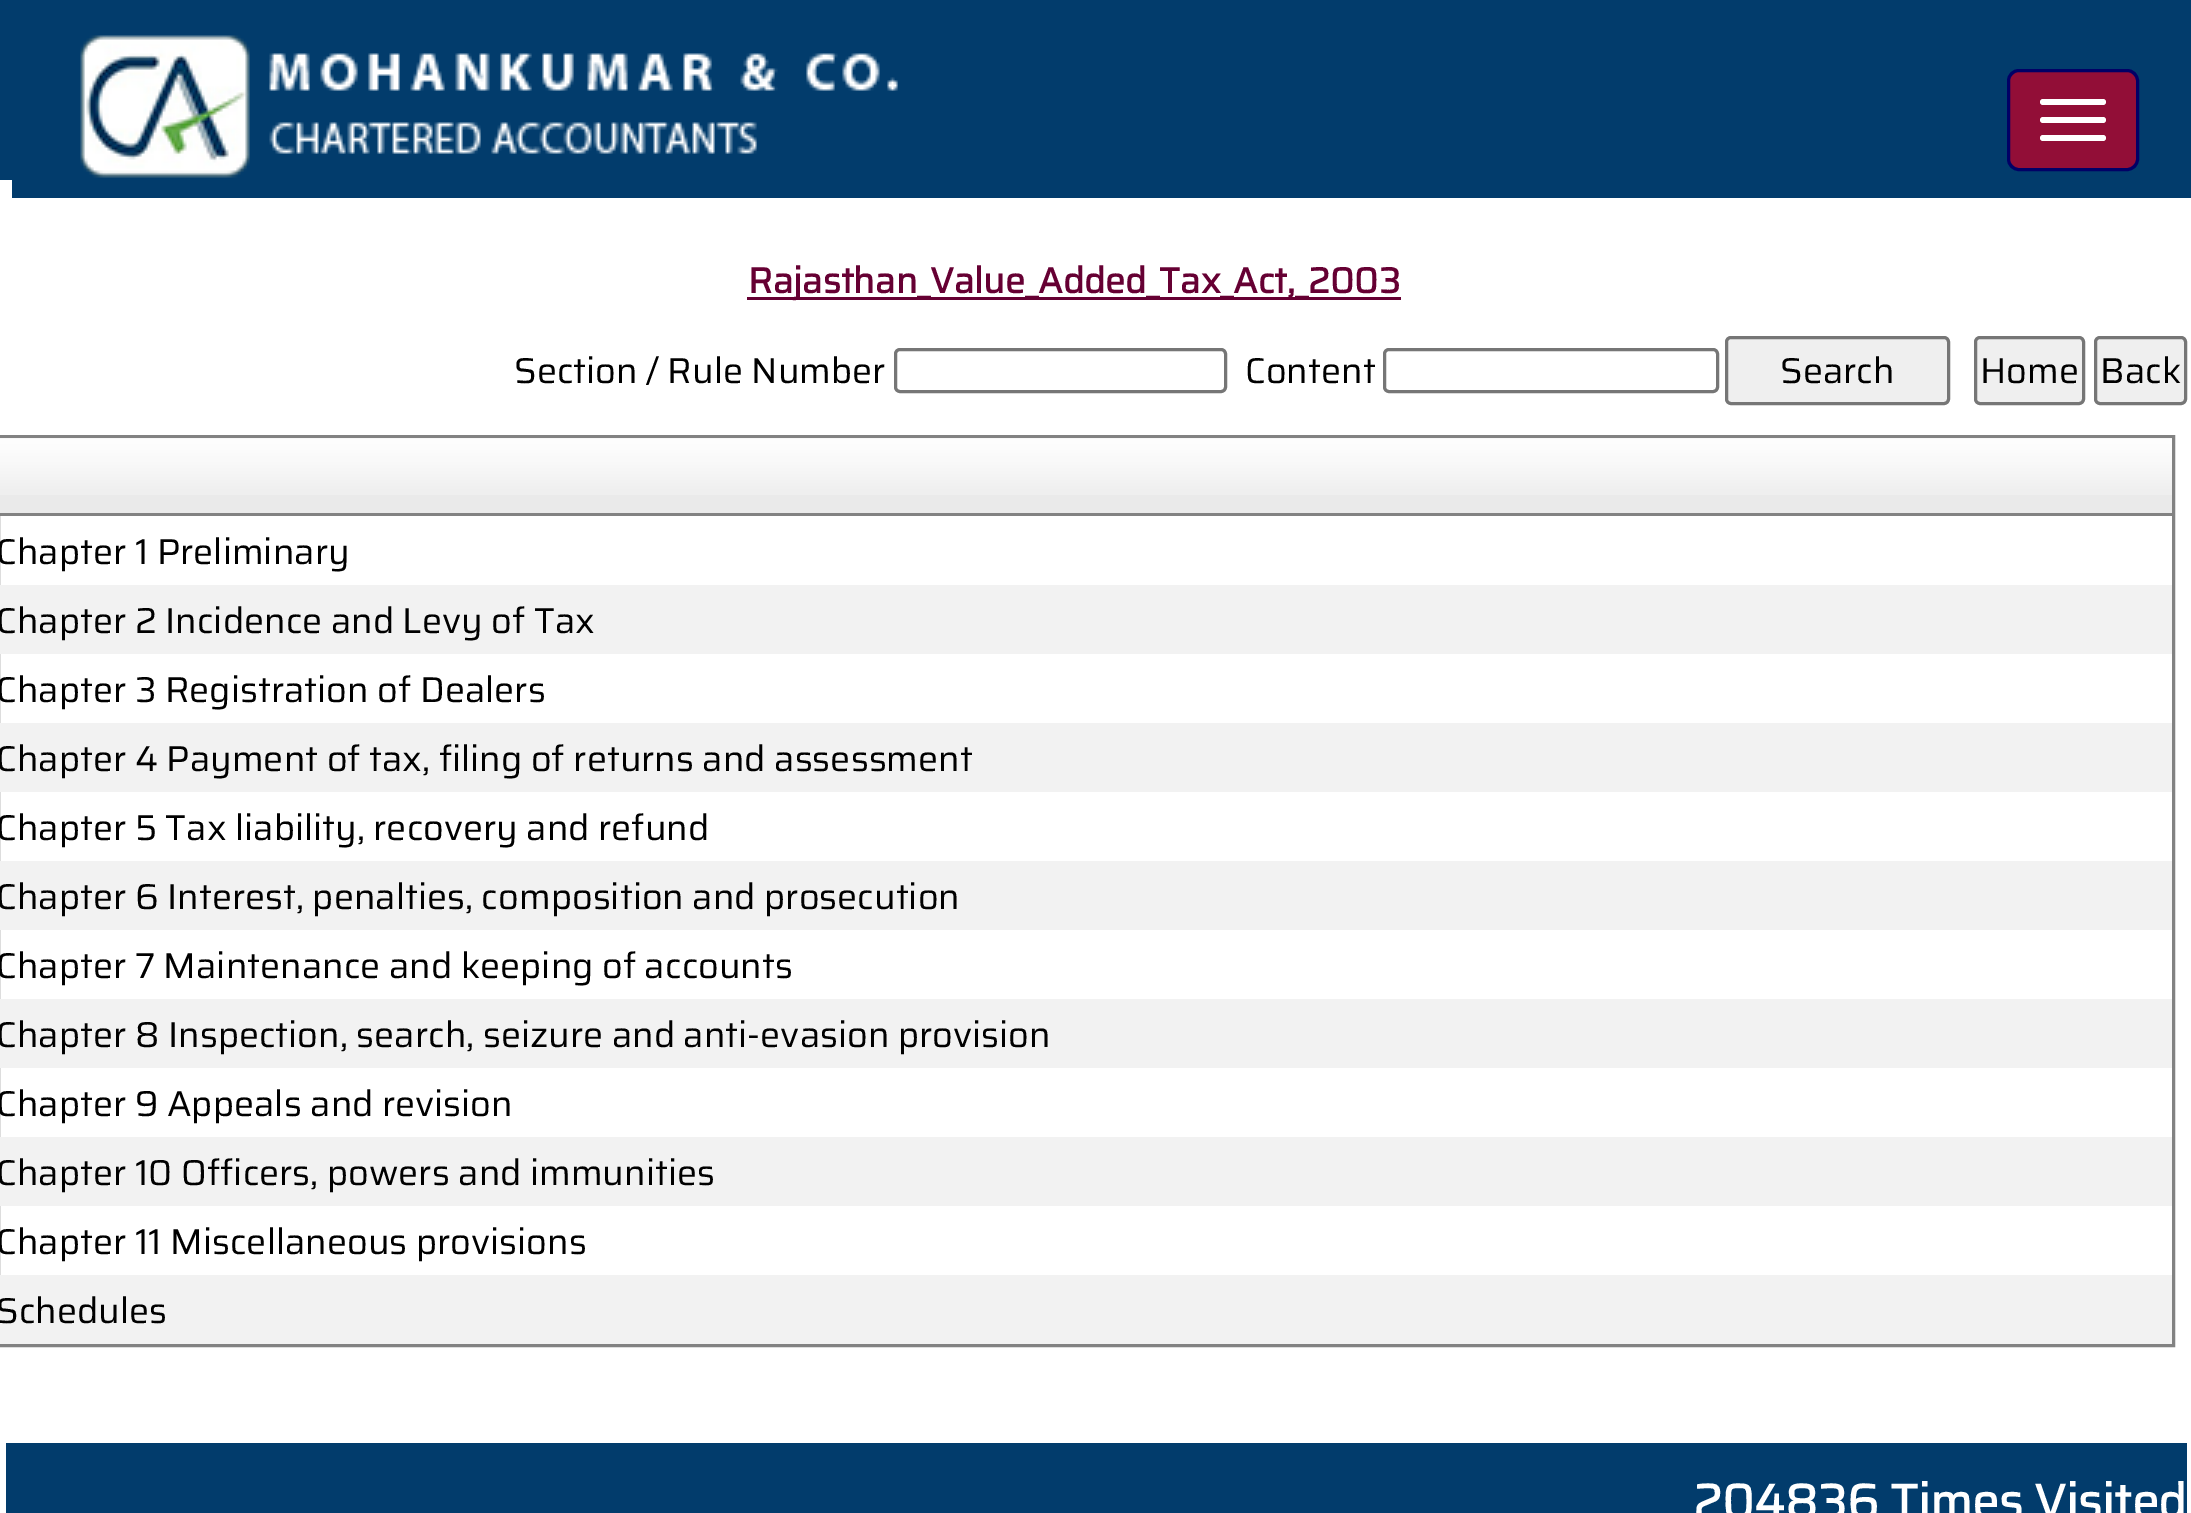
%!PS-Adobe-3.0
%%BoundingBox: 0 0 2191 1513
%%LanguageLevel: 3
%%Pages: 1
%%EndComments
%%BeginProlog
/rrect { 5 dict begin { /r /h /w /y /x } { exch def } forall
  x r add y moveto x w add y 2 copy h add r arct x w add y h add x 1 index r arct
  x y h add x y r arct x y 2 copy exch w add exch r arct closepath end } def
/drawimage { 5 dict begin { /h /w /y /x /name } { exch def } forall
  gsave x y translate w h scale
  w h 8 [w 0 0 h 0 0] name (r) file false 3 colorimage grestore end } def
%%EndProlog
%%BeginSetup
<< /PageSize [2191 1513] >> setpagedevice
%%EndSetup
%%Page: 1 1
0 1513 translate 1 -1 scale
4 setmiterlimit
1 setgray
0 0 2191 1513 rectfill
0.008 0.235 0.424 setrgbcolor
0 0 12 180 rectfill
12 0 2179 198 rectfill
(images/1.raw) 80 35 818 143 drawimage
0.573 0.055 0.216 setrgbcolor
2008.5 70.5 129 99 10.5 rrect gsave fill grestore
0.004 0 0.4 setrgbcolor
3 setlinewidth
stroke
1 setgray
2040 99 66 6 3 rrect fill
2040 117 66 6 3 rrect fill
2040 135 66 6 3 rrect fill
0.4 0 0.2 setrgbcolor
747 297 654 3 rectfill
0.463 setgray
895.5 349.5 330 42 4.5 rrect stroke
1384.5 349.5 333 42 4.5 rrect stroke
0.937 setgray
1726.5 337.5 222 66 4.5 rrect gsave fill grestore
0.463 setgray
stroke
0.937 setgray
1975.5 337.5 108 66 4.5 rrect gsave fill grestore
0.463 setgray
stroke
0.937 setgray
2095.5 337.5 90 66 4.5 rrect gsave fill grestore
0.463 setgray
stroke
0.51 setgray
-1.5 436.5 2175 909 rectstroke
0.918 setgray
0 438 2172 75 rectfill
(images/2.raw) 0 438 2172 57 drawimage
0.51 setgray
0 513 2172 3 rectfill
0.949 setgray
0 585 2172 69 rectfill
0 723 2172 69 rectfill
0 861 2172 69 rectfill
0 999 2172 69 rectfill
0 1137 2172 69 rectfill
0 1275 2172 69 rectfill
0.008 0.235 0.424 setrgbcolor
6 1443 2181 70 rectfill
/Saira-Bold [36 0 0 -36 0 0] selectfont
0.4 0 0.2 setrgbcolor
748 293 moveto (Rajasthan_Value_Added_Tax_Act,_2003) show
/Saira-Thin [36 0 0 -36 0 0] selectfont
0 setgray
514 383 moveto (Section / Rule Number) show
1245 383 moveto (Content) show
1780 383 moveto (Search) show
1980 383 moveto (Home) show
2100 383 moveto (Back) show
-4 564 moveto (Chapter 1 Preliminary) show
-4 633 moveto (Chapter 2 Incidence and Levy of Tax) show
-4 702 moveto (Chapter 3 Registration of Dealers) show
-4 771 moveto (Chapter 4 Payment of tax, filing of returns and assessment) show
-4 840 moveto (Chapter 5 Tax liability, recovery and refund) show
-4 909 moveto (Chapter 6 Interest, penalties, composition and prosecution) show
-4 978 moveto (Chapter 7 Maintenance and keeping of accounts) show
-4 1047 moveto (Chapter 8 Inspection, search, seizure and anti-evasion provision) show
-4 1116 moveto (Chapter 9 Appeals and revision) show
-4 1185 moveto (Chapter 10 Officers, powers and immunities) show
-4 1254 moveto (Chapter 11 Miscellaneous provisions) show
-4 1323 moveto (Schedules) show
/Saira-Bold [48 0 0 -48 0 0] selectfont
1 setgray
1693 1518 moveto (204836 Times Visited) show
showpage
%%EOF
